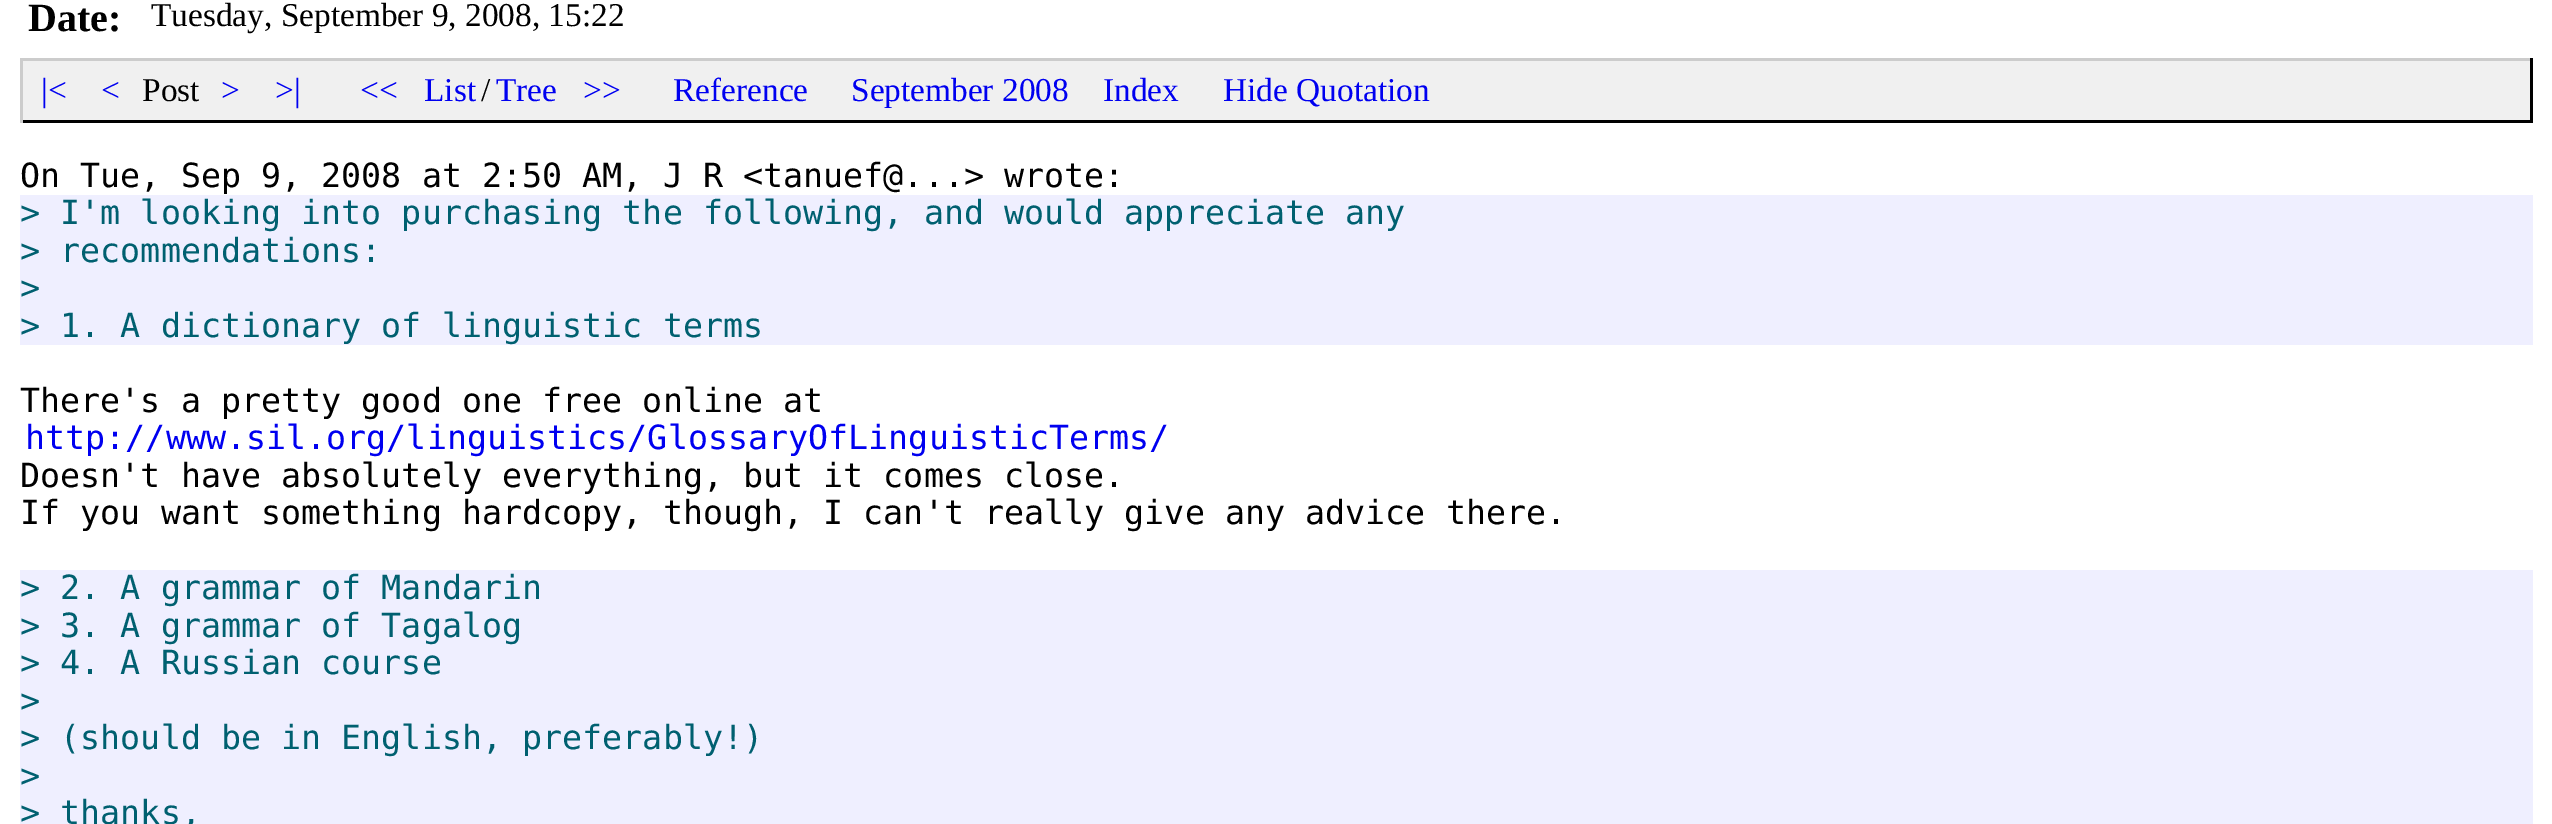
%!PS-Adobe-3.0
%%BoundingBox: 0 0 2552 824
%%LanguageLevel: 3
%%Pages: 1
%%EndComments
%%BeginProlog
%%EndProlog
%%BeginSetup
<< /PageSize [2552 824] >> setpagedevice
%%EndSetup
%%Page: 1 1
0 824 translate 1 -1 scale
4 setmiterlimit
1 setgray
0 0 2552 824 rectfill
0.941 setgray
23 61 2507 59 rectfill
0.8 setgray
20 58 2513 3 rectfill
0 setgray
2530 58 3 65 rectfill
20 120 2513 3 rectfill
0.8 setgray
20 58 3 65 rectfill
0.937 0.937 1 setrgbcolor
20 195 2513 150 rectfill
20 570 2513 254 rectfill
/LiberationSerif-Bold [40 0 0 -40 0 0] selectfont
0 setgray
28 31 moveto (Date:) show
/LiberationSerif-Regular [33.35 0 0 -33.35 0 0] selectfont
151 26 moveto (Tuesday, September 9, 2008, 15:22) show
0 0 0.941 setrgbcolor
41 101 moveto (|<) show
101 101 moveto (<) show
0 setgray
142 101 moveto (Post) show
0 0 0.941 setrgbcolor
221 101 moveto (>) show
275 101 moveto (>|) show
360 101 moveto (<<) show
424 101 moveto (List) show
0 setgray
481 101 moveto (/) show
0 0 0.941 setrgbcolor
496 101 moveto (Tree) show
583 101 moveto (>>) show
673 101 moveto (Reference) show
851 101 moveto (September 2008) show
1103 101 moveto (Index) show
1223 101 moveto (Hide Quotation) show
/DejaVuSansMono-Regular [33.35 0 0 -33.35 0 0] selectfont
0 setgray
20 187 moveto (On Tue, Sep 9, 2008 at 2:50 AM, J R <tanuef@...> wrote:) show
0 0.376 0.439 setrgbcolor
20 224 moveto (> I'm looking into purchasing the following, and would appreciate any) show
20 262 moveto (> recommendations:) show
20 299 moveto (>) show
20 337 moveto (> 1. A dictionary of linguistic terms) show
0 setgray
20 412 moveto (There's a pretty good one free online at) show
0 0 0.941 setrgbcolor
25 449 moveto (http://www.sil.org/linguistics/GlossaryOfLinguisticTerms/) show
0 setgray
20 487 moveto (Doesn't have absolutely everything, but it comes close.) show
20 524 moveto (If you want something hardcopy, though, I can't really give any advice there.) show
0 0.376 0.439 setrgbcolor
20 599 moveto (> 2. A grammar of Mandarin) show
20 637 moveto (> 3. A grammar of Tagalog) show
20 674 moveto (> 4. A Russian course) show
20 712 moveto (>) show
20 749 moveto (> \(should be in English, preferably!\)) show
20 787 moveto (>) show
20 824 moveto (> thanks,) show
showpage
%%EOF
